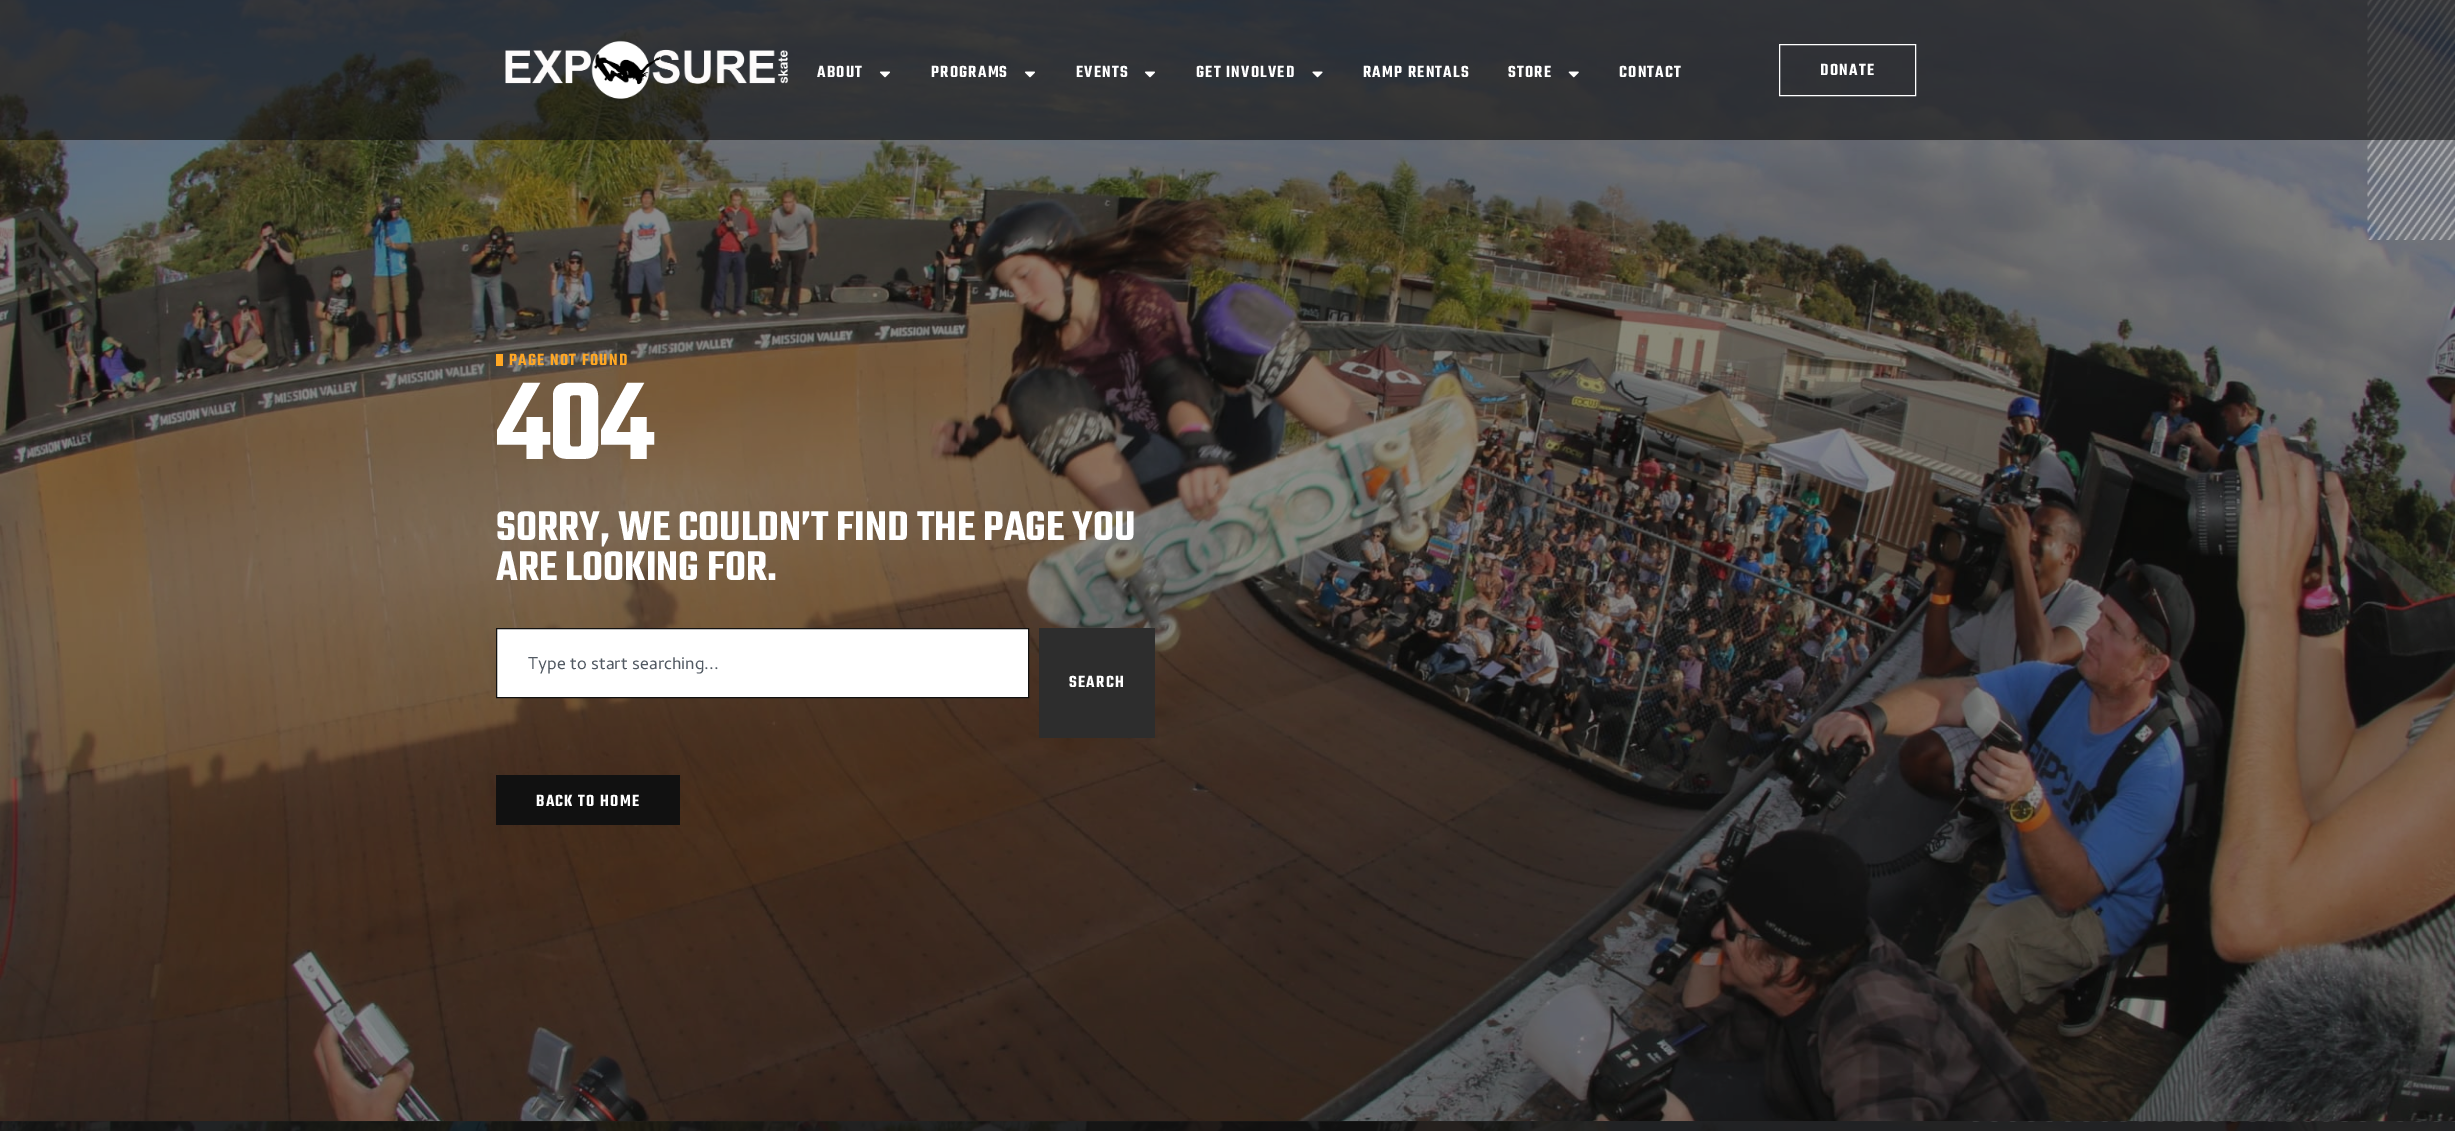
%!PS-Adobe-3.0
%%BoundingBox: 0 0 2455 1131
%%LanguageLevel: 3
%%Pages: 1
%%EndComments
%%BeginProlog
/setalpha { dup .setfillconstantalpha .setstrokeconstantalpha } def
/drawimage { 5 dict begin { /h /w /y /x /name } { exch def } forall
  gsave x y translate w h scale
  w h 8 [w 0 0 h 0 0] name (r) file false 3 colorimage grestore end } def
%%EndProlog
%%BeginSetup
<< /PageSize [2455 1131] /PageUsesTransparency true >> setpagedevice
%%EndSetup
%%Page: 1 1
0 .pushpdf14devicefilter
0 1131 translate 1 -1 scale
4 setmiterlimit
1 setgray
0 0 2455 1131 rectfill
(images/7.raw) 0 0 2455 1122 drawimage
(images/8.raw) 2367 0 88 240 drawimage
0.63 setalpha
0.067 setgray
0 0 2455 140 rectfill
1 setalpha
(images/1.raw) 505 40 284 59 drawimage
(images/2.raw) 879 71 11 7 drawimage
(images/3.raw) 1024 71 11 7 drawimage
(images/4.raw) 1144 71 11 7 drawimage
(images/5.raw) 1312 71 11 7 drawimage
(images/6.raw) 1568 71 11 7 drawimage
1 setgray
1779.5 44.5 136 51 rectstroke
1 0.655 0.141 setrgbcolor
496 354 7 12 rectfill
1 setgray
newpath 496.5 628.5 moveto 1028.5 628.5 lineto 1028.5 697.5 lineto 496.5 697.5 lineto closepath gsave fill grestore
0.067 setgray
stroke
0.176 setgray
1039 628 116 110 rectfill
0.067 setgray
496 775 184 50 rectfill
(images/9.raw) 0 1121 2455 10 drawimage
0.9 setalpha
0 1121 2455 10 rectfill
1 setalpha
(images/10.raw) 1972 1121 483 1 drawimage
/Teko-SemiBold [17.5 0 0 -17.5 0 0] selectfont
1 setgray
817 77 moveto 1.25 0 (ABOUT) ashow
931 77 moveto 1.25 0 (PROGRAMS) ashow
1076 77 moveto 1.25 0 (EVENTS) ashow
1196 77 moveto 1.25 0 (GET INVOLVED) ashow
1363 77 moveto 1.25 0 (RAMP RENTALS) ashow
1508 77 moveto 1.25 0 (STORE) ashow
1619 77 moveto 1.25 0 (CONTACT) ashow
1820 75 moveto 1.25 0 (DONATE) ashow
1 0.655 0.141 setrgbcolor
509 365 moveto 1.25 0 (PAGE NOT FOUND) ashow
/Teko-SemiBold [120 0 0 -120 0 0] selectfont
1 setgray
496 459 moveto -2.5 0 (404) ashow
/Teko-SemiBold [45 0 0 -45 0 0] selectfont
496 540 moveto (SORRY, WE COULDN’T FIND THE PAGE YOU) show
496 580 moveto (ARE LOOKING FOR.) show
/Cambay-Regular [17.5 0 0 -17.5 0 0] selectfont
0.318 0.349 0.384 setrgbcolor
528 669 moveto (Type to start searching...) show
/Teko-SemiBold [17.5 0 0 -17.5 0 0] selectfont
1 setgray
1069 687 moveto 1.25 0 (SEARCH) ashow
536 806 moveto 1.25 0 (BACK TO HOME) ashow
.poppdf14devicefilter showpage
%%EOF
